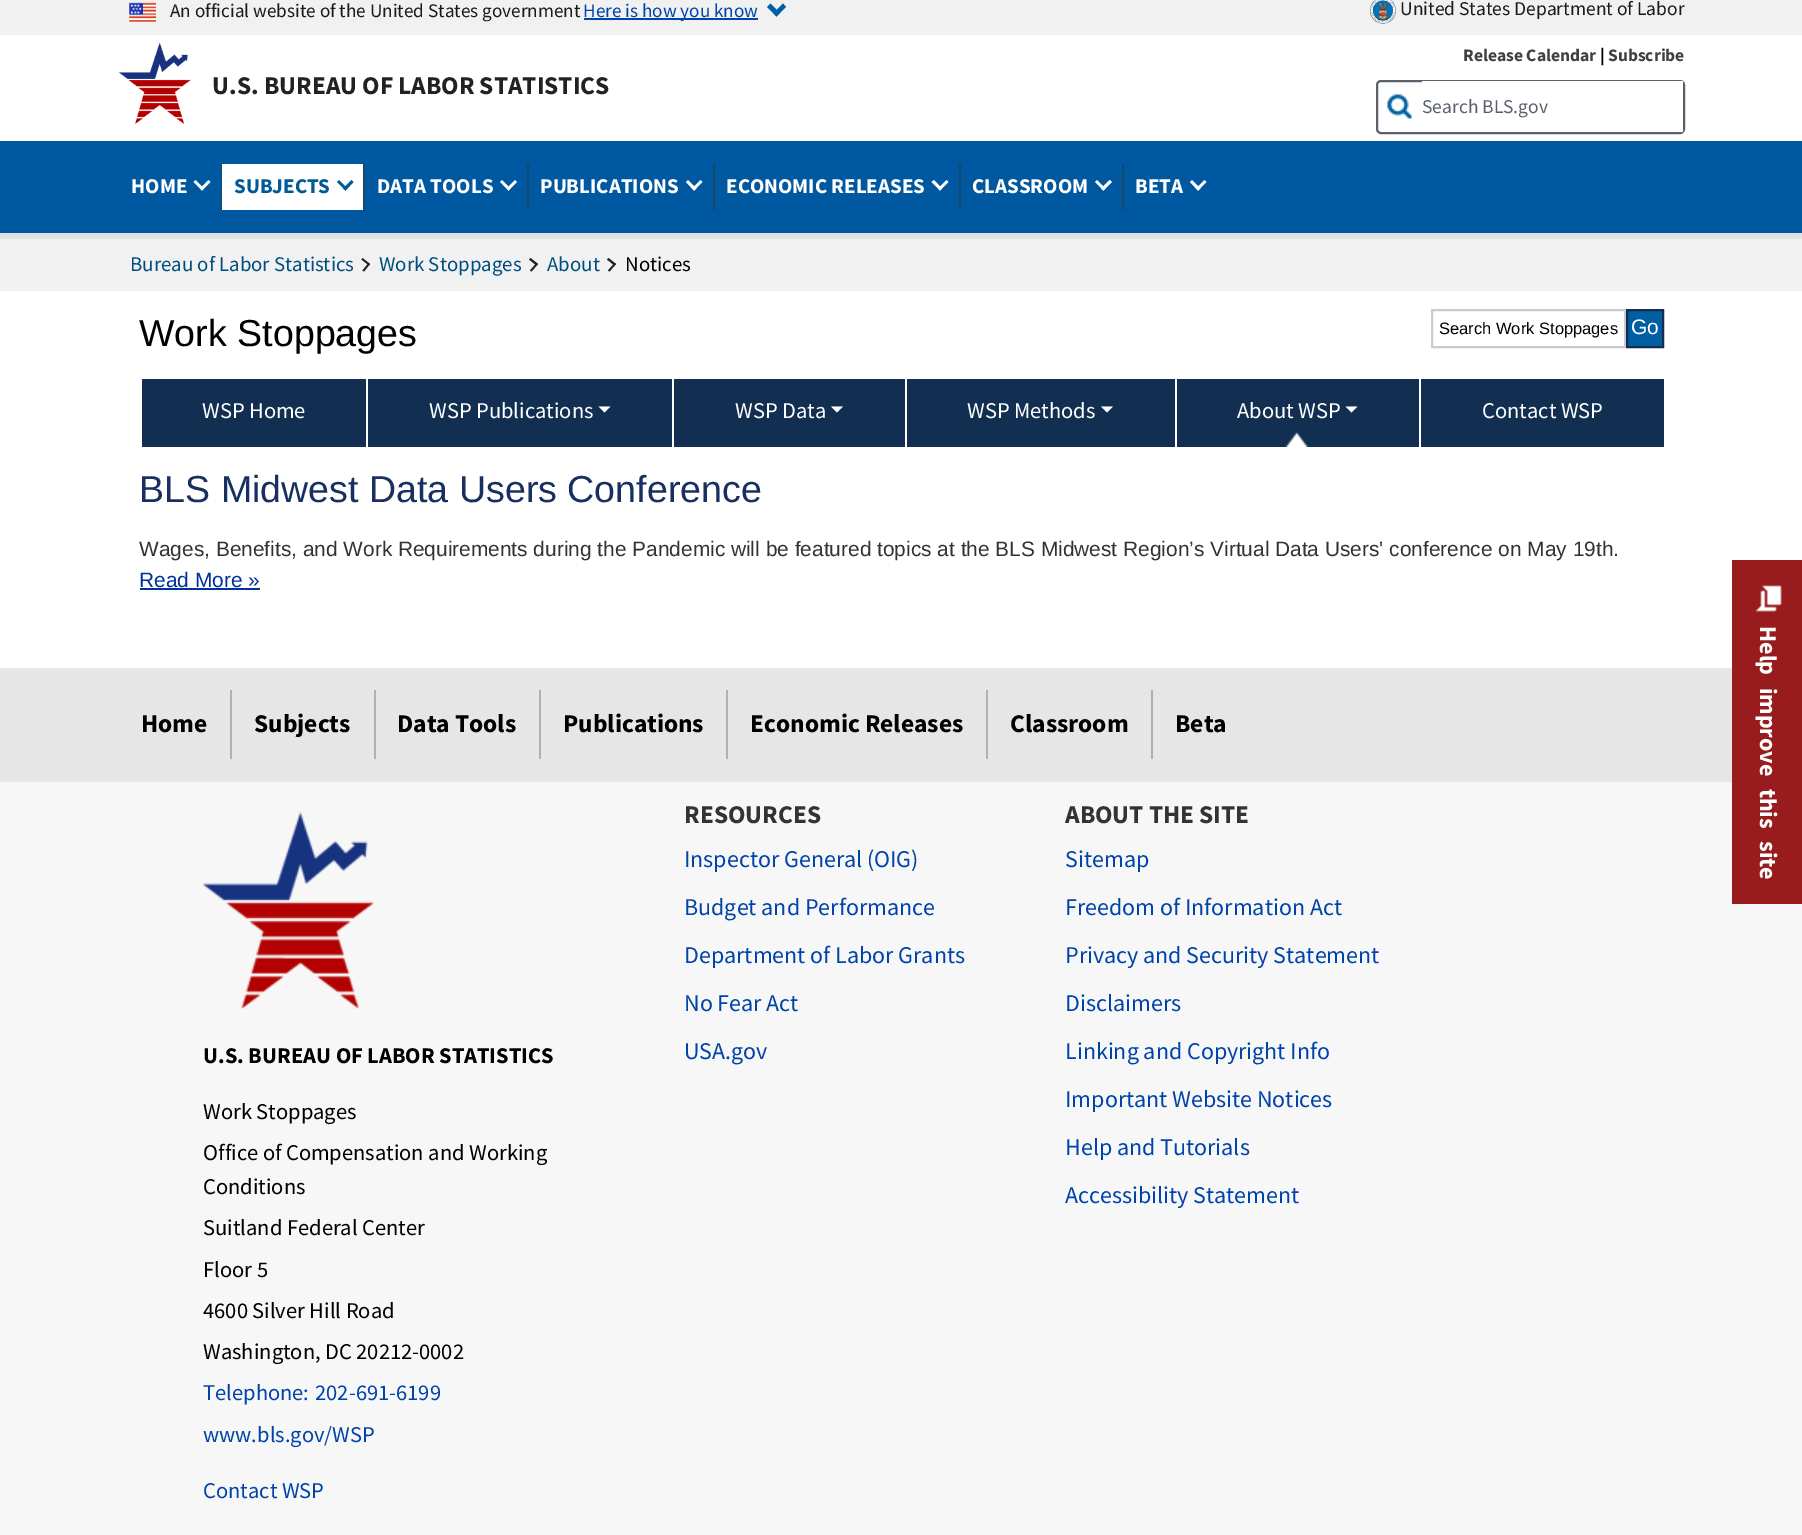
%!PS-Adobe-3.0
%%BoundingBox: 0 0 1802 1535
%%LanguageLevel: 3
%%Pages: 1
%%EndComments
%%BeginProlog
/rrect { 5 dict begin { /r /h /w /y /x } { exch def } forall
  x r add y moveto x w add y 2 copy h add r arct x w add y h add x 1 index r arct
  x y h add x y r arct x y 2 copy exch w add exch r arct closepath end } def
/drawimage { 5 dict begin { /h /w /y /x /name } { exch def } forall
  gsave x y translate w h scale
  w h 8 [w 0 0 h 0 0] name (r) file false 3 colorimage grestore end } def
%%EndProlog
%%BeginSetup
<< /PageSize [1802 1535] >> setpagedevice
%%EndSetup
%%Page: 1 1
0 1535 translate 1 -1 scale
4 setmiterlimit
1 setgray
0 0 1802 1535 rectfill
0.945 setgray
0 0 1802 35 rectfill
(images/1.raw) 129 2 27 20 drawimage
0 0.267 0.667 setrgbcolor
584 18 174 2 rectfill
0 0.369 0.635 setrgbcolor
newpath 783 3.5 moveto 786 7 lineto 776.5 16.5 lineto 773.5 13 lineto closepath fill
newpath 770.5 3.5 moveto 780 13 lineto 776.5 16.5 lineto 767 7 lineto closepath fill
(images/2.raw) 1370 0 26 24 drawimage
(images/3.raw) 118 42 73 82 drawimage
0.357 0.38 0.42 setrgbcolor
2 setlinewidth
1377 81 307 52 4 rrect stroke
(images/4.raw) 1387 94 25 25 drawimage
1 setgray
1422 81 261 51 rectfill
0 0.349 0.627 setrgbcolor
0 141 1802 92 rectfill
0.886 setgray
0 233 1802 6 rectfill
0.086 0.282 0.412 setrgbcolor
221 164 1 46 rectfill
1 setgray
newpath 208.5 180 moveto 210.5 182 lineto 202 190.5 lineto 200 188.5 lineto closepath fill
newpath 195.5 180 moveto 204 188.5 lineto 202 190.5 lineto 193.5 182 lineto closepath fill
222 164 141 46 rectfill
0.086 0.282 0.412 setrgbcolor
363 164 2 46 rectfill
0 0.353 0.588 setrgbcolor
newpath 351.5 180 moveto 353.5 182 lineto 345.5 190.5 lineto 343 188.5 lineto closepath fill
newpath 339 180 moveto 347.5 188.5 lineto 345.5 190.5 lineto 337 182 lineto closepath fill
0.086 0.282 0.412 setrgbcolor
527 164 2 46 rectfill
1 setgray
newpath 515 180 moveto 517 182 lineto 508.5 190.5 lineto 506.5 188.5 lineto closepath fill
newpath 502 180 moveto 510.5 188.5 lineto 508.5 190.5 lineto 500 182 lineto closepath fill
0.086 0.282 0.412 setrgbcolor
713 164 2 46 rectfill
1 setgray
newpath 700.5 180 moveto 702.5 182 lineto 694 190.5 lineto 692 188.5 lineto closepath fill
newpath 688 180 moveto 696.5 188.5 lineto 694 190.5 lineto 686 182 lineto closepath fill
0.086 0.282 0.412 setrgbcolor
959 164 2 46 rectfill
1 setgray
newpath 946.5 180 moveto 948.5 182 lineto 940 190.5 lineto 938 188.5 lineto closepath fill
newpath 934 180 moveto 942 188.5 lineto 940 190.5 lineto 931.5 182 lineto closepath fill
0.086 0.282 0.412 setrgbcolor
1122 164 2 46 rectfill
1 setgray
newpath 1109.5 180 moveto 1112 182 lineto 1103.5 190.5 lineto 1101 188.5 lineto closepath fill
newpath 1097 180 moveto 1105.5 188.5 lineto 1103.5 190.5 lineto 1095 182 lineto closepath fill
newpath 1204.5 180 moveto 1206.5 182 lineto 1198 190.5 lineto 1196 188.5 lineto closepath fill
newpath 1192 180 moveto 1200.5 188.5 lineto 1198 190.5 lineto 1190 182 lineto closepath fill
0.945 setgray
0 239 1802 52 rectfill
0.133 setgray
newpath 361.5 259.5 moveto 362.5 258 lineto 370 264 lineto 369 265.5 lineto closepath fill
newpath 362.5 270.5 moveto 368.5 263 lineto 370 264 lineto 364 271.5 lineto closepath fill
newpath 529 259.5 moveto 530.5 258 lineto 538 264 lineto 536.5 265.5 lineto closepath fill
newpath 530 270.5 moveto 536.5 263 lineto 538 264 lineto 531.5 271.5 lineto closepath fill
newpath 607 259.5 moveto 608.5 258 lineto 616 264 lineto 614.5 265.5 lineto closepath fill
newpath 608 270.5 moveto 614.5 263 lineto 616 264 lineto 609.5 271.5 lineto closepath fill
0.8 setgray
1432 310 193 37 rectstroke
0 0.369 0.635 setrgbcolor
newpath 1627 310 moveto 1663 310 lineto 1663 347 lineto 1627 347 lineto closepath gsave fill grestore
0.071 0.184 0.318 setrgbcolor
stroke
142 379 224 68 rectfill
368 379 304 68 rectfill
1 setgray
newpath 598.5 406.5 moveto 610.5 406.5 lineto 604.5 412.5 lineto closepath fill
0.071 0.184 0.318 setrgbcolor
674 379 231 68 rectfill
1 setgray
newpath 831 406.5 moveto 843 406.5 lineto 837 412.5 lineto closepath fill
0.071 0.184 0.318 setrgbcolor
907 379 268 68 rectfill
1 setgray
newpath 1101 406.5 moveto 1113 406.5 lineto 1107 412.5 lineto closepath fill
0.071 0.184 0.318 setrgbcolor
1177 379 242 68 rectfill
(images/5.raw) 1285 432 23 15 drawimage
1 setgray
newpath 1345.5 406.5 moveto 1357.5 406.5 lineto 1351.5 412.5 lineto closepath fill
0.071 0.184 0.318 setrgbcolor
1421 379 243 68 rectfill
0 0.2 0.6 setrgbcolor
140 588 120 2 rectfill
0.902 setgray
0 668 1732 114 rectfill
0.682 0.69 0.71 setrgbcolor
230 690 2 69 rectfill
374 690 2 69 rectfill
539 690 2 69 rectfill
726 690 2 69 rectfill
986 690 2 69 rectfill
1151 690 2 69 rectfill
0.969 setgray
0 782 1802 753 rectfill
0.596 0.106 0.118 setrgbcolor
1732 560 70 344 rectfill
(images/6.raw) 1755 585 27 27 drawimage
(images/7.raw) 202 811 172 198 drawimage
/SourceSansPro-Regular [19.2 0 0 -19.2 0 0] selectfont
0.106 setgray
170 17 moveto (An official website of the United States government) show
0 0.267 0.667 setrgbcolor
583 17 moveto (Here is how you know) show
/SourceSansPro-Regular [19.5 0 0 -19.5 0 0] selectfont
0.106 setgray
1400 15 moveto (United States Department of Labor) show
/SourceSansPro-Bold [25.5 0 0 -25.5 0 0] selectfont
0.133 setgray
212 94 moveto (U.S. BUREAU OF LABOR STATISTICS) show
/SourceSansPro-Bold [17.5 0 0 -17.5 0 0] selectfont
0.251 setgray
1463 61 moveto (Release Calendar) show
0 setgray
1600 61 moveto (|) show
0.251 setgray
1608 61 moveto (Subscribe) show
/SourceSansPro-Regular [19.5 0 0 -19.5 0 0] selectfont
0.357 0.38 0.42 setrgbcolor
1422 113 moveto (Search BLS.gov) show
/SourceSansPro-Bold [21 0 0 -21 0 0] selectfont
1 setgray
131 193 moveto (HOME) show
0 0.353 0.588 setrgbcolor
234 193 moveto (SUBJECTS) show
1 setgray
377 193 moveto (DATA TOOLS) show
540 193 moveto (PUBLICATIONS) show
726 193 moveto (ECONOMIC RELEASES) show
972 193 moveto (CLASSROOM) show
1135 193 moveto (BETA) show
/SourceSansPro-Regular [20.88 0 0 -20.88 0 0] selectfont
0 0.302 0.502 setrgbcolor
130 271 moveto (Bureau of Labor Statistics) show
379 271 moveto (Work Stoppages) show
547 271 moveto (About) show
0 setgray
625 271 moveto (Notices) show
/LiberationSans-Regular [37.6 0 0 -37.6 0 0] selectfont
139 346 moveto (Work Stoppages) show
/LiberationSans-Regular [16.5 0 0 -16.5 0 0] selectfont
1439 334 moveto (Search Work Stoppages) show
/LiberationSans-Regular [21 0 0 -21 0 0] selectfont
1 setgray
1631 334 moveto (Go) show
/SourceSansPro-Regular [22.5 0 0 -22.5 0 0] selectfont
202 418 moveto (WSP Home) show
429 418 moveto (WSP Publications) show
735 418 moveto (WSP Data) show
967 418 moveto (WSP Methods) show
1237 418 moveto (About WSP) show
1482 418 moveto (Contact WSP) show
/LiberationSans-Regular [37.6 0 0 -37.6 0 0] selectfont
0.094 0.188 0.38 setrgbcolor
139 502 moveto (BLS Midwest Data Users Conference) show
/LiberationSans-Regular [20.88 0 0 -20.88 0 0] selectfont
0.2 setgray
139 556 moveto (Wages, Benefits, and Work Requirements during the Pandemic will be featured topics at the BLS Midwest Region’s Virtual Data Users' conference on May 19th.) show
0 0.2 0.6 setrgbcolor
139 587 moveto (Read More ») show
/SourceSansPro-Bold [25.5 0 0 -25.5 0 0] selectfont
0 setgray
141 732 moveto (Home) show
254 732 moveto (Subjects) show
397 732 moveto (Data Tools) show
563 732 moveto (Publications) show
750 732 moveto (Economic Releases) show
1010 732 moveto (Classroom) show
1175 732 moveto (Beta) show
/SourceSansPro-Bold [24 0 0 -24 0 0] selectfont
1 setgray
gsave 1760 626 translate 90 rotate 0 0 moveto 7.5 0 32 (Help improve this site) widthshow grestore
/SourceSansPro-Bold [25.5 0 0 -25.5 0 0] selectfont
0.2 setgray
684 823 moveto (RESOURCES) show
/SourceSansPro-Regular [24 0 0 -24 0 0] selectfont
0 0.267 0.667 setrgbcolor
684 867 moveto (Inspector General \(OIG\)) show
684 915 moveto (Budget and Performance) show
684 963 moveto (Department of Labor Grants) show
684 1011 moveto (No Fear Act) show
684 1059 moveto (USA.gov) show
/SourceSansPro-Bold [25.5 0 0 -25.5 0 0] selectfont
0.2 setgray
1065 823 moveto (ABOUT THE SITE) show
/SourceSansPro-Regular [24 0 0 -24 0 0] selectfont
0 0.267 0.667 setrgbcolor
1065 867 moveto (Sitemap) show
1065 915 moveto (Freedom of Information Act) show
1065 963 moveto (Privacy and Security Statement) show
1065 1011 moveto (Disclaimers) show
1065 1059 moveto (Linking and Copyright Info) show
1065 1107 moveto (Important Website Notices) show
1065 1155 moveto (Help and Tutorials) show
1065 1203 moveto (Accessibility Statement) show
/SourceSansPro-Bold [22.5 0 0 -22.5 0 0] selectfont
0 setgray
203 1063 moveto (U.S. BUREAU OF LABOR STATISTICS) show
/SourceSansPro-Regular [22.5 0 0 -22.5 0 0] selectfont
203 1119 moveto (Work Stoppages) show
203 1160 moveto (Office of Compensation and Working) show
203 1194 moveto (Conditions) show
203 1235 moveto (Suitland Federal Center) show
203 1277 moveto (Floor 5) show
203 1318 moveto (4600 Silver Hill Road) show
203 1359 moveto (Washington, DC 20212-0002) show
0 0.267 0.667 setrgbcolor
203 1400 moveto (Telephone:) show
315 1400 moveto (202-691-6199) show
203 1442 moveto (www.bls.gov/WSP) show
203 1498 moveto (Contact WSP) show
showpage
%%EOF
